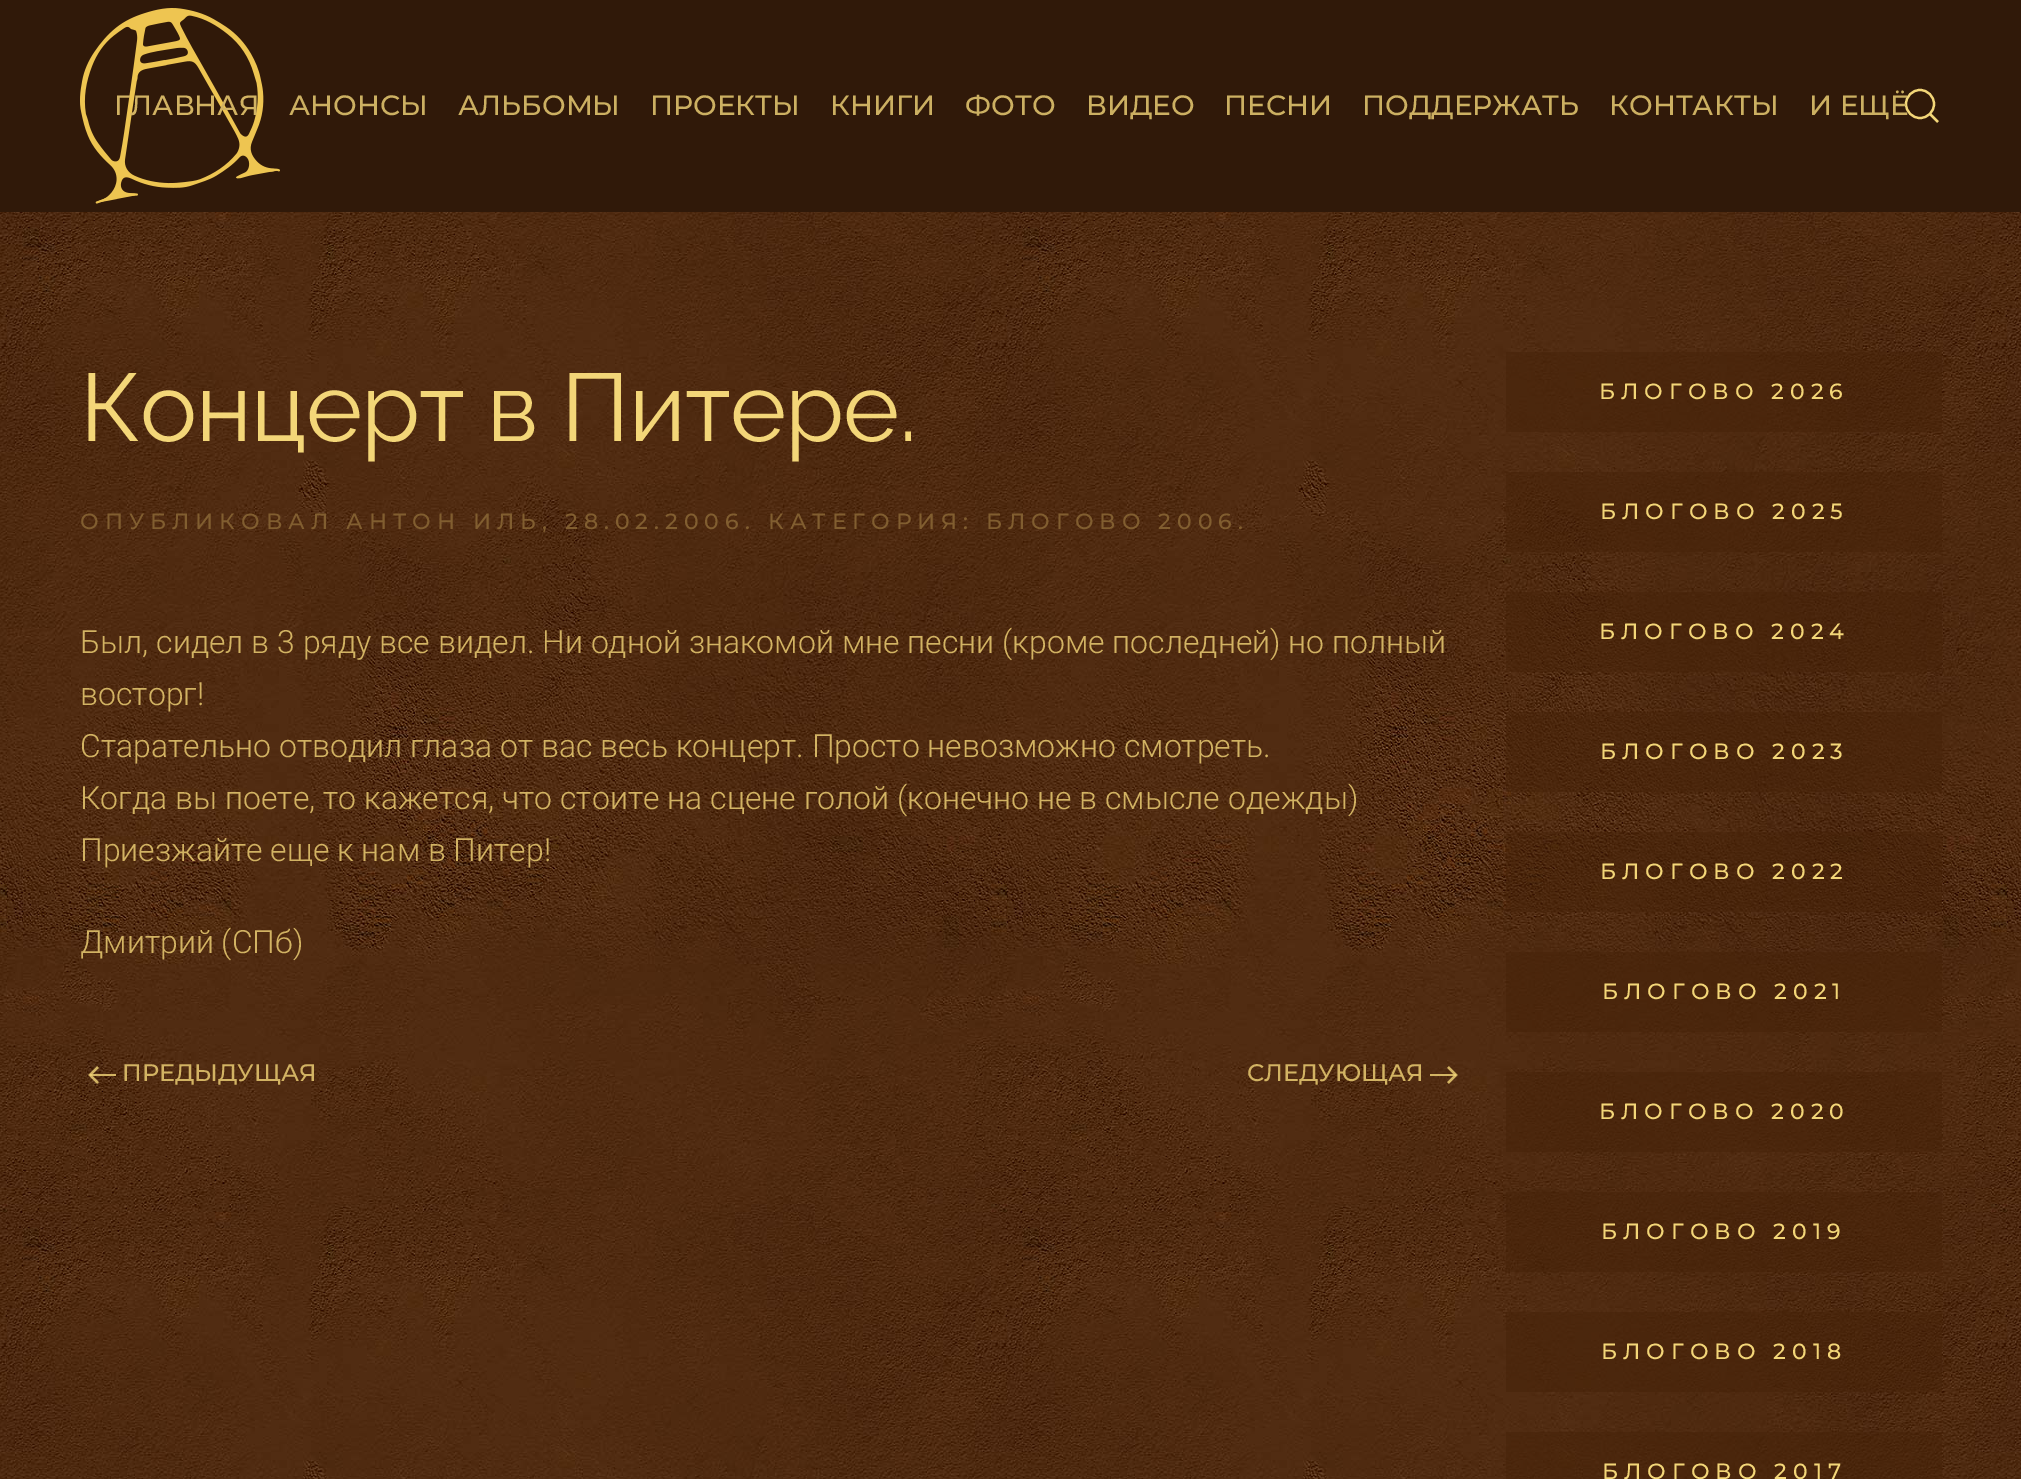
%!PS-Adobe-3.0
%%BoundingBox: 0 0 2021 1479
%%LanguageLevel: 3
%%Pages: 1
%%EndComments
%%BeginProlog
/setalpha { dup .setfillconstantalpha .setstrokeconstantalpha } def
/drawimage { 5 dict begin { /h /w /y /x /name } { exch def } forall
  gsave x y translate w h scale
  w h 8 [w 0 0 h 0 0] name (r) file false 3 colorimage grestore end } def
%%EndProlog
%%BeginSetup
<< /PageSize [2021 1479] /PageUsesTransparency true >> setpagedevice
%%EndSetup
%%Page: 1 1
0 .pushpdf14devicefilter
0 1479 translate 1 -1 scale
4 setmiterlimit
0.188 0.098 0.035 setrgbcolor
0 0 2021 1479 rectfill
(images/1.raw) 80 8 200 196 drawimage
0.953 0.839 0.471 setrgbcolor
2.2 setlinewidth
newpath 1920 104 14 0 360 arc closepath stroke
newpath 1930 114 moveto 1938 122 lineto closepath stroke
(images/2.raw) 0 212 2021 1267 drawimage
0.8 setalpha
newpath 98 1083 moveto 90 1075 lineto 98 1067 lineto stroke
90 1074 26 2 rectfill
newpath 1448 1067 moveto 1456 1075 lineto 1448 1083 lineto stroke
1430 1074 26 2 rectfill
0.5 setalpha
0.275 0.133 0.031 setrgbcolor
1506 352 436 80 rectfill
1506 472 436 80 rectfill
1506 592 436 80 rectfill
1506 712 436 80 rectfill
1506 832 436 80 rectfill
1506 952 436 80 rectfill
1506 1072 436 80 rectfill
1506 1192 436 80 rectfill
1506 1312 436 80 rectfill
1506 1432 436 47 rectfill
/Montserrat-Medium [28 0 0 -28 0 0] selectfont
1 setalpha
0.824 0.702 0.388 setrgbcolor
114 115 moveto (ГЛАВНАЯ) show
0.8 0.69 0.384 setrgbcolor
289 115 moveto (АНОНСЫ) show
458 115 moveto (АЛЬБОМЫ) show
650 115 moveto (ПРОЕКТЫ) show
830 115 moveto (КНИГИ) show
965 115 moveto (ФОТО) show
1086 115 moveto (ВИДЕО) show
1224 115 moveto (ПЕСНИ) show
1362 115 moveto (ПОДДЕРЖАТЬ) show
1609 115 moveto (КОНТАКТЫ) show
1809 115 moveto (И ЕЩЁ) show
/Raleway-Regular [96 0 0 -96 0 0] selectfont
0.953 0.839 0.471 setrgbcolor
80 441 moveto -1 0 (Концерт в Питере.) ashow
/Montserrat-Medium [22 0 0 -22 0 0] selectfont
0.506 0.369 0.188 setrgbcolor
80 529 moveto 6 0 (ОПУБЛИКОВАЛ АНТОН ИЛЬ) ashow
542 529 moveto 6 0 (,) ashow
565 529 moveto 6 0 (28.02.2006) ashow
745 529 moveto 6 0 (.) ashow
768 529 moveto 6 0 (КАТЕГОРИЯ:) ashow
986 529 moveto 6 0 (БЛОГОВО 2006.) ashow
/Roboto-Light [32 0 0 -32 0 0] selectfont
0.824 0.702 0.388 setrgbcolor
80 653 moveto (Был, сидел в 3 ряду все видел. Ни одной знакомой мне песни \(кроме последней\) но полный) show
80 705 moveto (восторг!) show
80 757 moveto (Старательно отводил глаза от вас весь концерт. Просто невозможно смотреть.) show
80 809 moveto (Когда вы поете, то кажется, что стоите на сцене голой \(конечно не в смысле одежды\)) show
80 861 moveto (Приезжайте еще к нам в Питер!) show
80 953 moveto (Дмитрий \(СПб\)) show
/Montserrat-Medium [24 0 0 -24 0 0] selectfont
122 1081 moveto (ПРЕДЫДУЩАЯ) show
1247 1081 moveto (СЛЕДУЮЩАЯ) show
/Montserrat-Medium [22 0 0 -22 0 0] selectfont
0.953 0.839 0.471 setrgbcolor
1599 399 moveto 6 0 (БЛОГОВО 2026) ashow
1600 519 moveto 6 0 (БЛОГОВО 2025) ashow
1599 639 moveto 6 0 (БЛОГОВО 2024) ashow
1600 759 moveto 6 0 (БЛОГОВО 2023) ashow
1600 879 moveto 6 0 (БЛОГОВО 2022) ashow
1602 999 moveto 6 0 (БЛОГОВО 2021) ashow
1599 1119 moveto 6 0 (БЛОГОВО 2020) ashow
1601 1239 moveto 6 0 (БЛОГОВО 2019) ashow
1601 1359 moveto 6 0 (БЛОГОВО 2018) ashow
1602 1479 moveto 6 0 (БЛОГОВО 2017) ashow
.poppdf14devicefilter showpage
%%EOF
